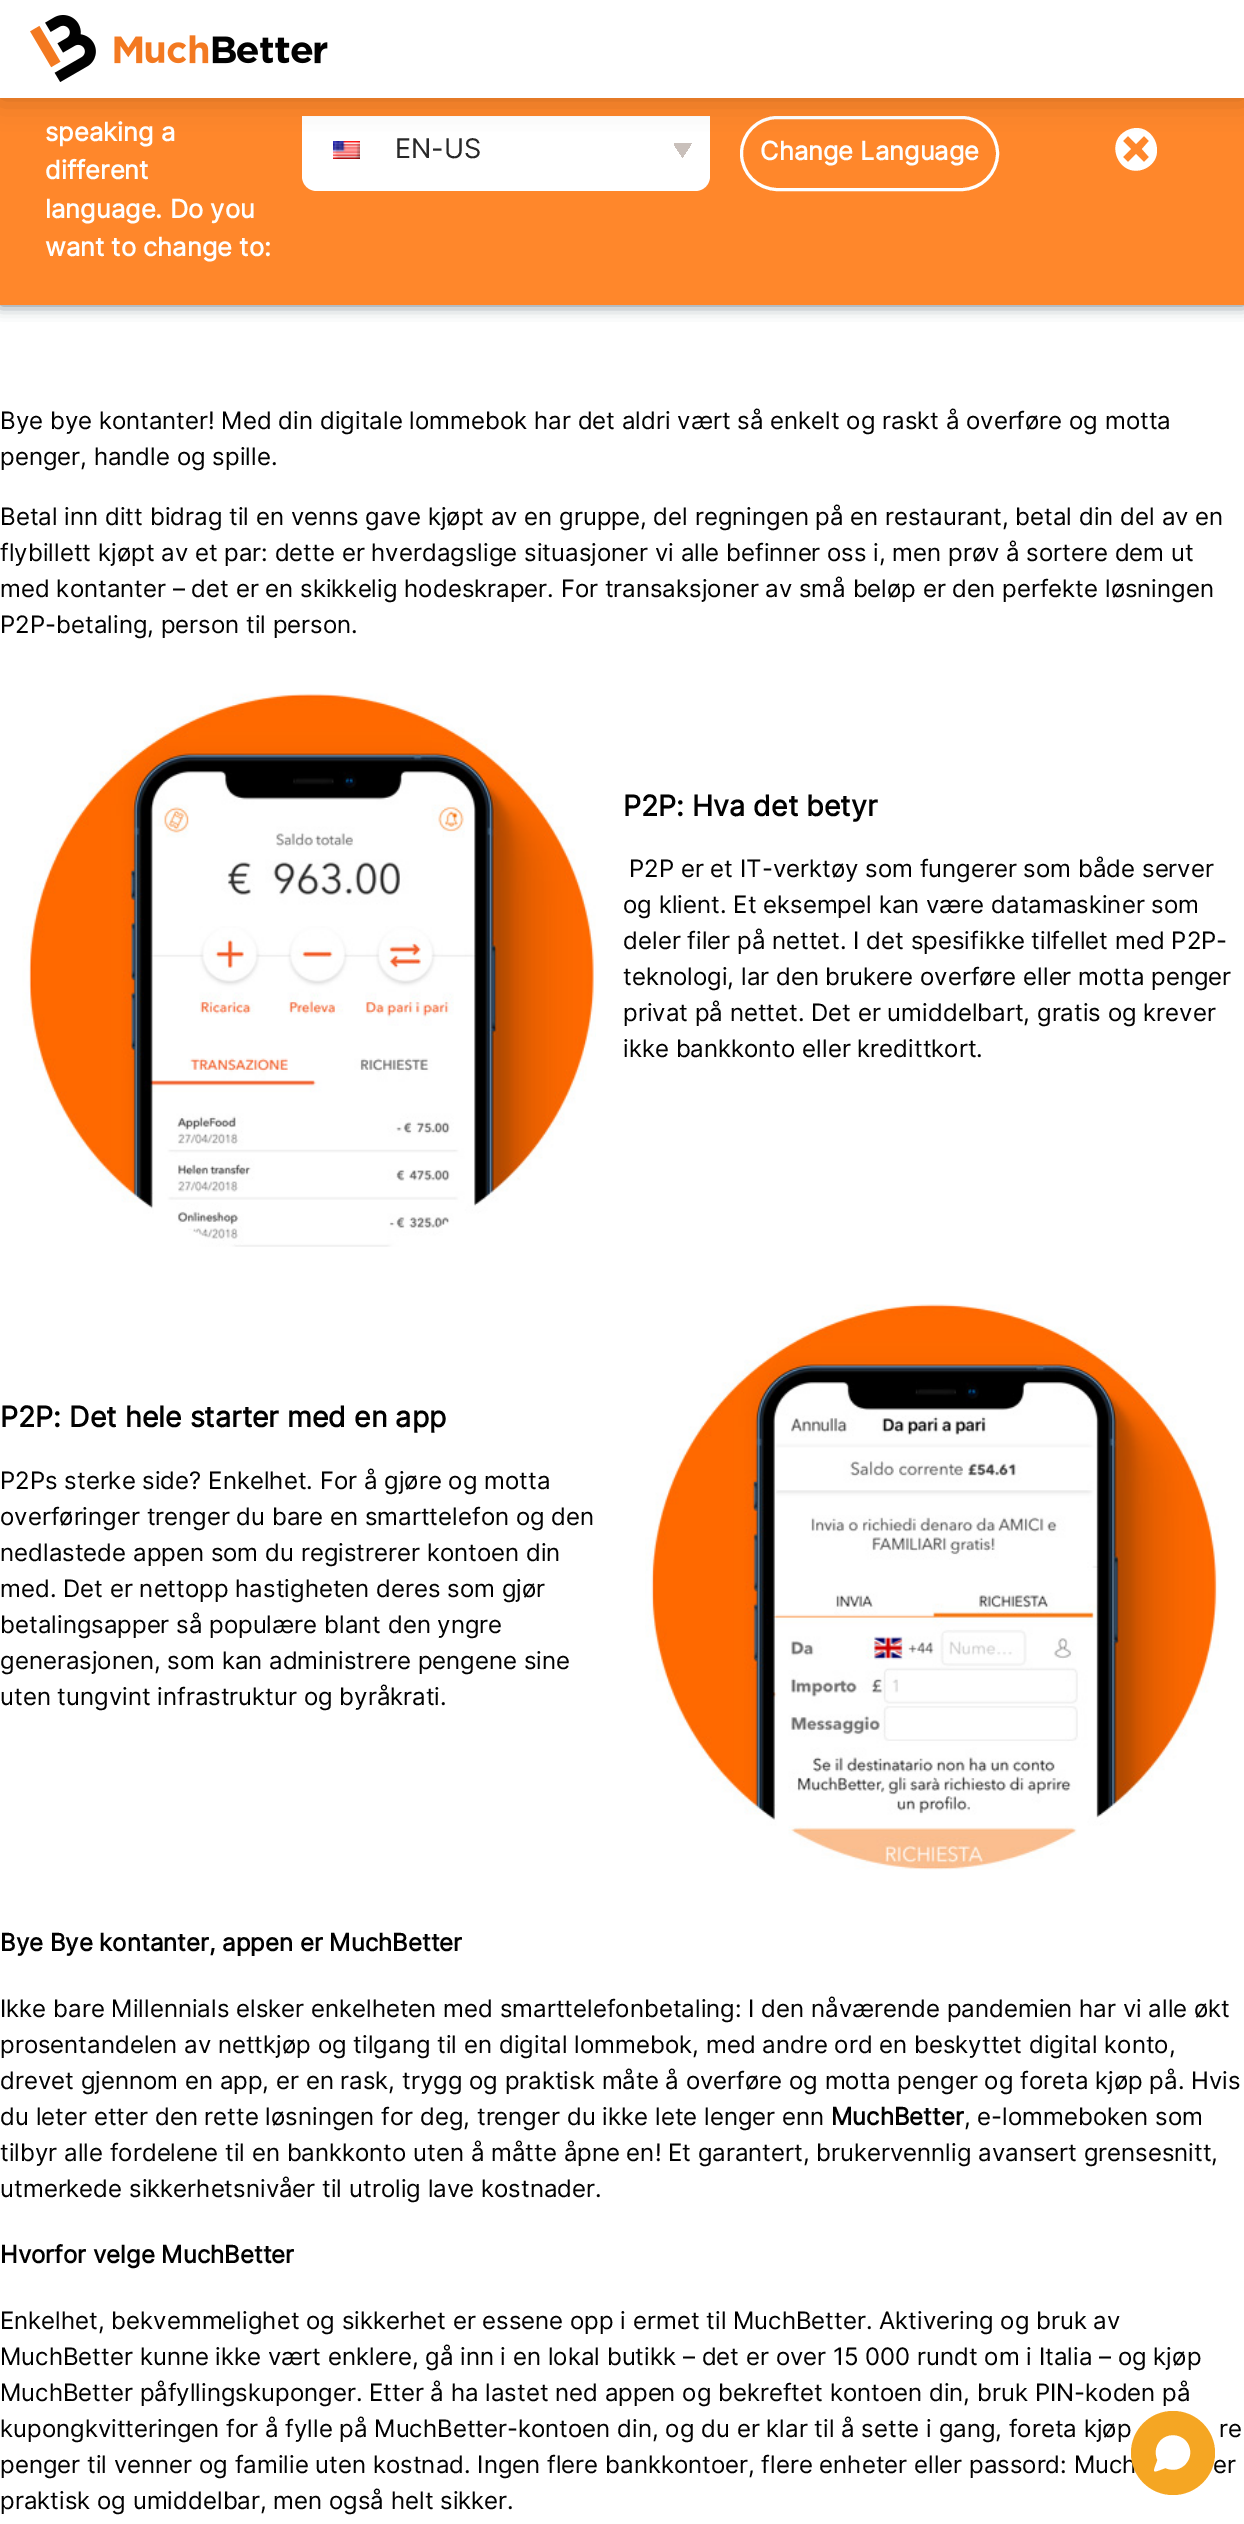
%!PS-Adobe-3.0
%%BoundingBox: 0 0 1244 2524
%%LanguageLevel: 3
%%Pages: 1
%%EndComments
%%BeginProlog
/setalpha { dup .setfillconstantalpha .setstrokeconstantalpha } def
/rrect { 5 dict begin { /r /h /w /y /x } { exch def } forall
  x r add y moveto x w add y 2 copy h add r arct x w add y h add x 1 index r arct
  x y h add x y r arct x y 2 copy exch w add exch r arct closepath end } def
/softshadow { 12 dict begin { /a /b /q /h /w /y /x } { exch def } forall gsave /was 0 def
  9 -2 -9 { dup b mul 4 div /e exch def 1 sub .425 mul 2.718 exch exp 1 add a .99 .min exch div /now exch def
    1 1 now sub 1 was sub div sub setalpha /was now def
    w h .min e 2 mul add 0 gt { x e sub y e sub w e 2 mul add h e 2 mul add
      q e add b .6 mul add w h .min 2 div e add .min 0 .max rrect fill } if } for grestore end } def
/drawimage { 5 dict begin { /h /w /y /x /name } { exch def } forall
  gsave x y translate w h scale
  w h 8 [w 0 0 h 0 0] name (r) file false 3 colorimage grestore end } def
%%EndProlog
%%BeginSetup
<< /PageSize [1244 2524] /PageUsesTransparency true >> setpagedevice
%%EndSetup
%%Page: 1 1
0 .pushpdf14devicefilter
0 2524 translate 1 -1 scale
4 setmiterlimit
1 setgray
0 0 1244 2524 rectfill
0.424 0.467 0.506 setrgbcolor
0 0 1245 305 0 7.5 1 softshadow
1 0.529 0.169 setrgbcolor
0 98 1244 207 rectfill
1 setgray
newpath 302 116 moveto 710 116 lineto 710 176 lineto 710 184.5 703.5 191 695 191 curveto 317 191 lineto 308.5 191 302 184.5 302 176 curveto closepath fill
gsave newpath 683 143 moveto 692 143 lineto 692 157 lineto 683 157 lineto closepath clip newpath
<< /ShadingType 2 /ColorSpace /DeviceRGB /Coords [680 147 694 156] /Extend [true true] /Function << /FunctionType 3 /Domain [0 1] /Functions [<< /FunctionType 2 /Domain [0 1] /C0 [0.788 0.753 0.733] /C1 [0.788 0.753 0.733] /N 1 >> << /FunctionType 2 /Domain [0 1] /C0 [1 1 1] /C1 [1 1 1] /N 1 >>] /Bounds [0.5] /Encode [0 1 0 1] >> >> shfill grestore
gsave newpath 674 143 moveto 683 143 lineto 683 158 lineto 674 158 lineto closepath clip newpath
<< /ShadingType 2 /ColorSpace /DeviceRGB /Coords [671 156 685 147] /Extend [true true] /Function << /FunctionType 3 /Domain [0 1] /Functions [<< /FunctionType 2 /Domain [0 1] /C0 [1 1 1] /C1 [1 1 1] /N 1 >> << /FunctionType 2 /Domain [0 1] /C0 [0.788 0.753 0.733] /C1 [0.788 0.753 0.733] /N 1 >>] /Bounds [0.5] /Encode [0 1 0 1] >> >> shfill grestore
(images/2.raw) 333 141 27 18 drawimage
3 setlinewidth
741.5 117.5 256 72 36 rrect stroke
newpath 1128 130 moveto 1153 119 1170 158 1144 169 curveto 1119 179 1103 141 1128 130 curveto closepath 1149 157 moveto 1142 149 lineto 1149 141 lineto 1144 136 lineto 1136 144 lineto 1128 136 lineto 1123 141 lineto 1131 149 lineto 1123 157 lineto 1128 162 lineto 1136 154 lineto 1144 162 lineto closepath fill
0 setgray
0 0 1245 98 0 15 0.2 softshadow
1 setgray
0 0 1244 98 rectfill
(images/1.raw) 30 15 298 67 drawimage
(images/3.raw) 22 693 574 554 drawimage
(images/4.raw) 645 1304 574 566 drawimage
/Inter-Bold [25.5 0 0 -25.5 0 0] selectfont
45 141 moveto (speaking a) show
45 179 moveto (different) show
45 218 moveto (language. Do you) show
45 256 moveto (want to change to:) show
/Inter-Regular [27 0 0 -27 0 0] selectfont
0.157 setgray
395 158 moveto (EN-US) show
/Inter-Bold [25.5 0 0 -25.5 0 0] selectfont
1 setgray
760 160 moveto (Change Language) show
/Inter-Regular [24 0 0 -24 0 0] selectfont
0.004 setgray
0 429 moveto (Bye bye kontanter! Med din digitale lommebok har det aldri vært så enkelt og raskt å overføre og motta) show
0 465 moveto (penger, handle og spille.) show
0 525 moveto (Betal inn ditt bidrag til en venns gave kjøpt av en gruppe, del regningen på en restaurant, betal din del av en) show
0 561 moveto (flybillett kjøpt av et par: dette er hverdagslige situasjoner vi alle befinner oss i, men prøv å sortere dem ut) show
0 597 moveto (med kontanter – det er en skikkelig hodeskraper. For transaksjoner av små beløp er den perfekte løsningen) show
0 633 moveto (P2P-betaling, person til person.) show
/Inter-Bold [28.5 0 0 -28.5 0 0] selectfont
623 816 moveto (P2P: Hva det betyr) show
/Inter-Regular [24 0 0 -24 0 0] selectfont
629 877 moveto (P2P er et IT-verktøy som fungerer som både server) show
623 913 moveto (og klient. Et eksempel kan være datamaskiner som) show
623 949 moveto (deler filer på nettet. I det spesifikke tilfellet med P2P-) show
623 985 moveto (teknologi, lar den brukere overføre eller motta penger) show
623 1021 moveto (privat på nettet. Det er umiddelbart, gratis og krever) show
623 1057 moveto (ikke bankkonto eller kredittkort.) show
/Inter-Bold [28.5 0 0 -28.5 0 0] selectfont
0 1427 moveto (P2P: Det hele starter med en app) show
/Inter-Regular [24 0 0 -24 0 0] selectfont
0 1489 moveto (P2Ps sterke side? Enkelhet. For å gjøre og motta) show
0 1525 moveto (overføringer trenger du bare en smarttelefon og den) show
0 1561 moveto (nedlastede appen som du registrerer kontoen din) show
0 1597 moveto (med. Det er nettopp hastigheten deres som gjør) show
0 1633 moveto (betalingsapper så populære blant den yngre) show
0 1669 moveto (generasjonen, som kan administrere pengene sine) show
0 1705 moveto (uten tungvint infrastruktur og byråkrati.) show
/Inter-Bold [24 0 0 -24 0 0] selectfont
0 1951 moveto (Bye Bye kontanter, appen er MuchBetter) show
/Inter-Regular [24 0 0 -24 0 0] selectfont
0 2017 moveto (Ikke bare Millennials elsker enkelheten med smarttelefonbetaling: I den nåværende pandemien har vi alle økt) show
0 2053 moveto (prosentandelen av nettkjøp og tilgang til en digital lommebok, med andre ord en beskyttet digital konto,) show
0 2089 moveto (drevet gjennom en app, er en rask, trygg og praktisk måte å overføre og motta penger og foreta kjøp på. Hvis) show
0 2125 moveto (du leter etter den rette løsningen for deg, trenger du ikke lete lenger enn) show
/Inter-Bold [24 0 0 -24 0 0] selectfont
831 2125 moveto (MuchBetter) show
/Inter-Regular [24 0 0 -24 0 0] selectfont
964 2125 moveto (, e-lommeboken som) show
0 2161 moveto (tilbyr alle fordelene til en bankkonto uten å måtte åpne en! Et garantert, brukervennlig avansert grensesnitt,) show
0 2197 moveto (utmerkede sikkerhetsnivåer til utrolig lave kostnader.) show
/Inter-Bold [24 0 0 -24 0 0] selectfont
0 2263 moveto (Hvorfor velge MuchBetter) show
/Inter-Regular [24 0 0 -24 0 0] selectfont
0 2329 moveto (Enkelhet, bekvemmelighet og sikkerhet er essene opp i ermet til MuchBetter. Aktivering og bruk av) show
0 2365 moveto (MuchBetter kunne ikke vært enklere, gå inn i en lokal butikk – det er over 15 000 rundt om i Italia – og kjøp) show
0 2401 moveto (MuchBetter påfyllingskuponger. Etter å ha lastet ned appen og bekreftet kontoen din, bruk PIN-koden på) show
0 2437 moveto (kupongkvitteringen for å fylle på MuchBetter-kontoen din, og du er klar til å sette i gang, foreta kjøp) show
1219 2437 moveto (re) show
0 2473 moveto (penger til venner og familie uten kostnad. Ingen flere bankkontoer, flere enheter eller passord: Much) show
1213 2473 moveto (er) show
0 2509 moveto (praktisk og umiddelbar, men også helt sikker.) show
0.961 0.651 0.137 setrgbcolor
newpath 1173 2453 42 0 360 arc closepath fill
1 setgray
newpath 1163 2438.5 moveto 1167 2435.5 1172.5 2434.5 1177.5 2436 curveto 1181.5 2437 1185 2439.5 1187 2442.5 curveto 1197 2457 1181.5 2475.5 1165.5 2468 curveto 1151.5 2473 1152.5 2474 1157.5 2460 curveto 1154 2452.5 1156 2443.5 1163 2438.5 curveto closepath fill
.poppdf14devicefilter showpage
%%EOF
